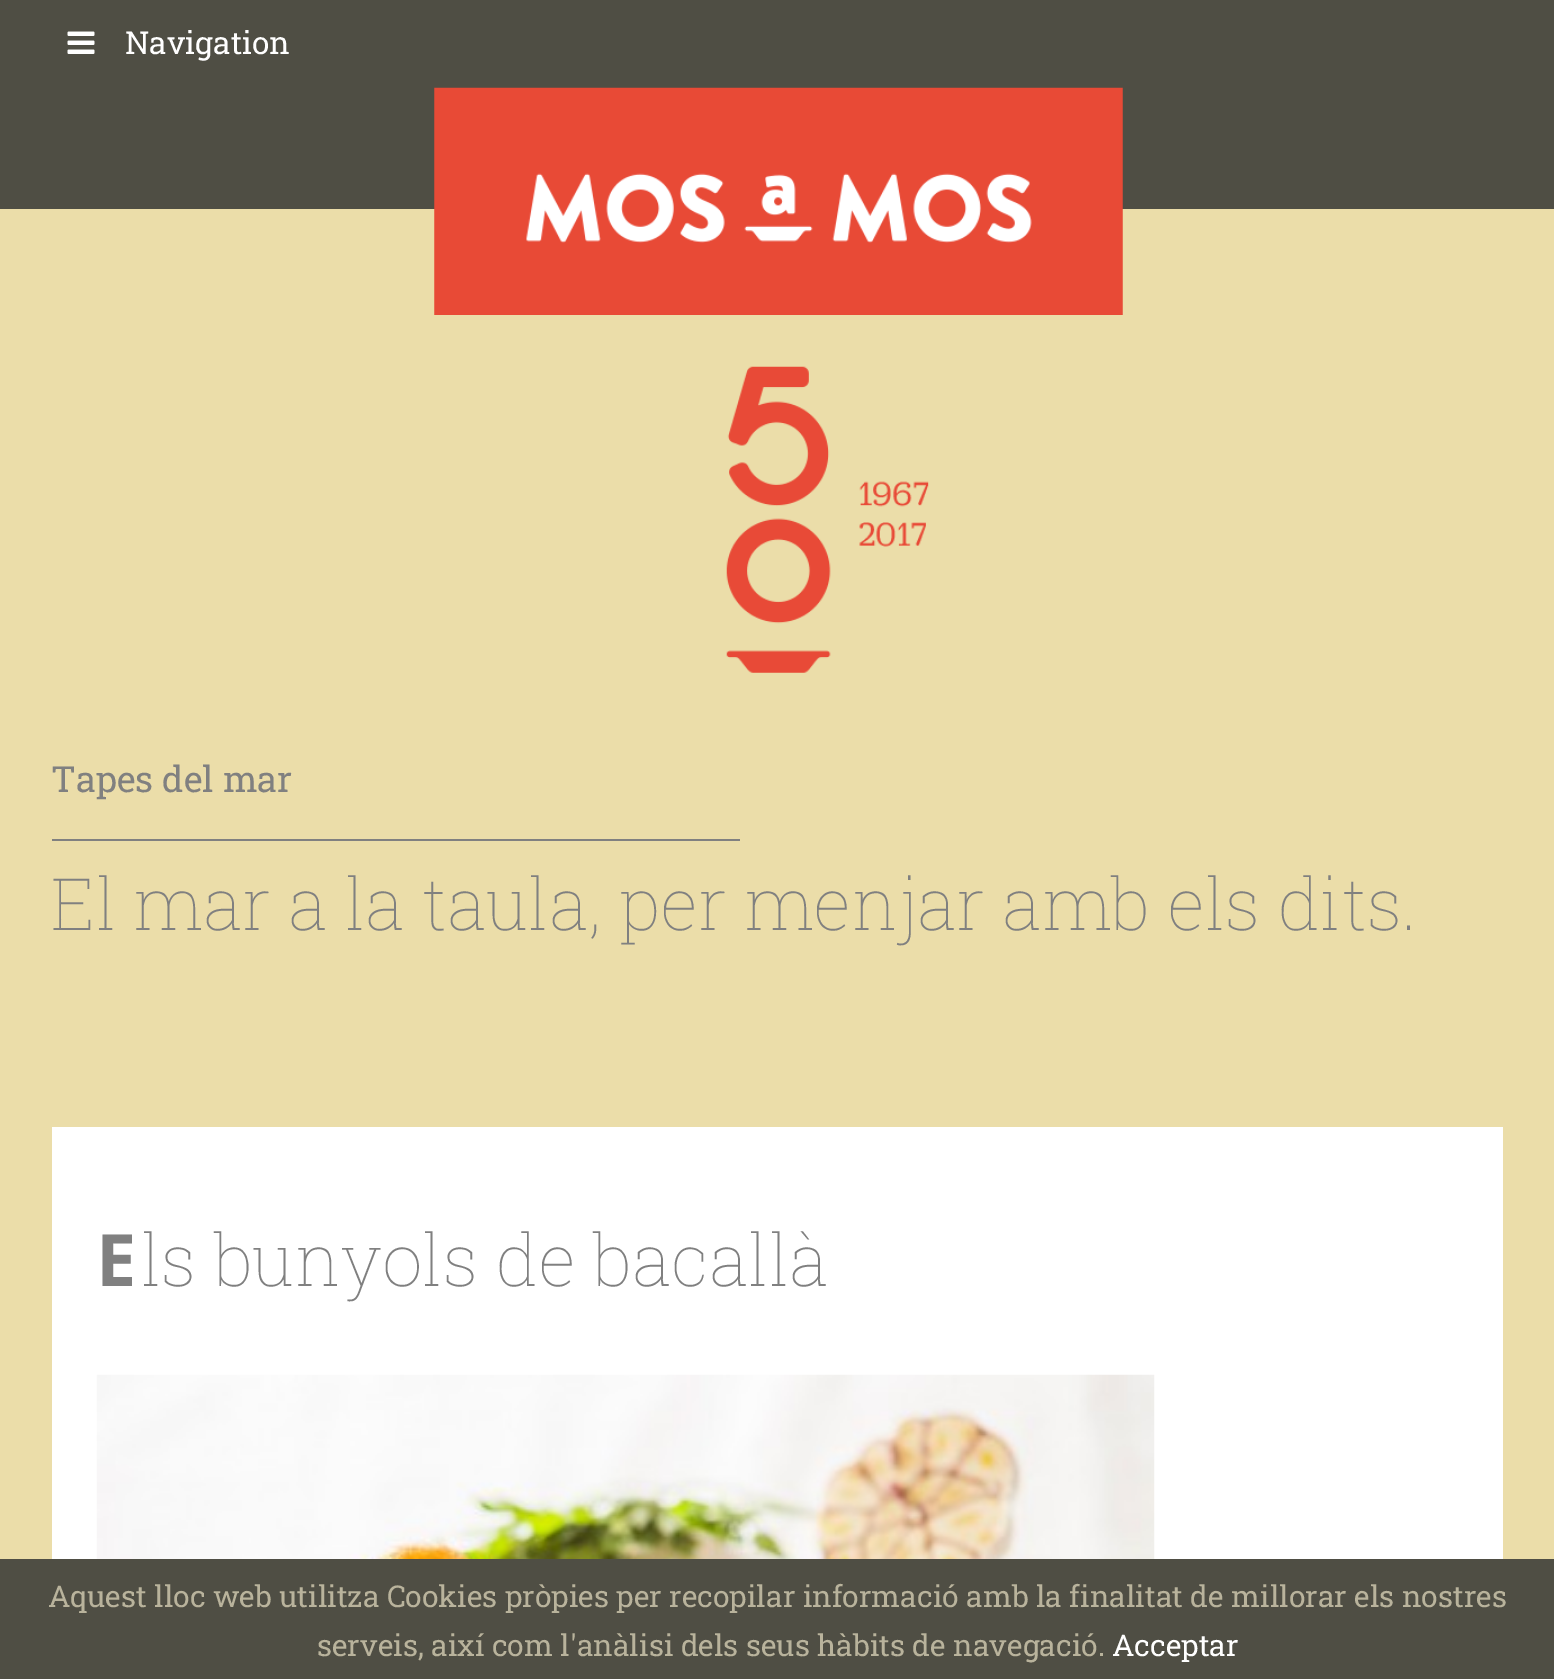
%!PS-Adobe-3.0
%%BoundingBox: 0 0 1554 1679
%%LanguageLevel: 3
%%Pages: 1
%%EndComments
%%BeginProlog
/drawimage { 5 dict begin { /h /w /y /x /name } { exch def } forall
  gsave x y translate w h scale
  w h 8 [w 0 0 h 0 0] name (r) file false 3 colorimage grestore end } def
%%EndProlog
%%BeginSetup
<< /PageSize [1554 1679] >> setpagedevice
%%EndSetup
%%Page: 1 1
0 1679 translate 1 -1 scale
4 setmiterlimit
0.922 0.867 0.663 setrgbcolor
0 0 1554 1679 rectfill
0.31 0.306 0.267 setrgbcolor
0 0 1554 209 rectfill
(images/1.raw) 67 31 28 23 drawimage
(images/2.raw) 434 87 689 228 drawimage
(images/3.raw) 726 366 203 307 drawimage
0.502 setgray
52 839 688 2 rectfill
1 setgray
52 1127 1451 432 rectfill
(images/4.raw) 96 1374 1059 185 drawimage
0.31 0.306 0.267 setrgbcolor
0 1559 1554 120 rectfill
/RobotoSlab-Regular [31.5 0 0 -31.5 0 0] selectfont
1 setgray
125 54 moveto (Navigation) show
/RobotoSlab-Regular [36 0 0 -36 0 0] selectfont
0.502 setgray
51 792 moveto (Tapes del mar) show
/RobotoSlab-Thin [72 0 0 -72 0 0] selectfont
51 930 moveto (El mar a la taula, per menjar amb els dits.) show
/NotoSans-Bold [72 0 0 -72 0 0] selectfont
96 1286 moveto (E) show
/RobotoSlab-Thin [72 0 0 -72 0 0] selectfont
141 1286 moveto (ls bunyols de bacallà) show
/RobotoSlab-Regular [30 0 0 -30 0 0] selectfont
0.725 0.702 0.612 setrgbcolor
48 1607 moveto (Aquest lloc web utilitza Cookies pròpies per recopilar informació amb la finalitat de millorar els nostres) show
317 1656 moveto (serveis, així com l'anàlisi dels seus hàbits de navegació.) show
1 setgray
1112 1656 moveto (Acceptar) show
showpage
%%EOF
